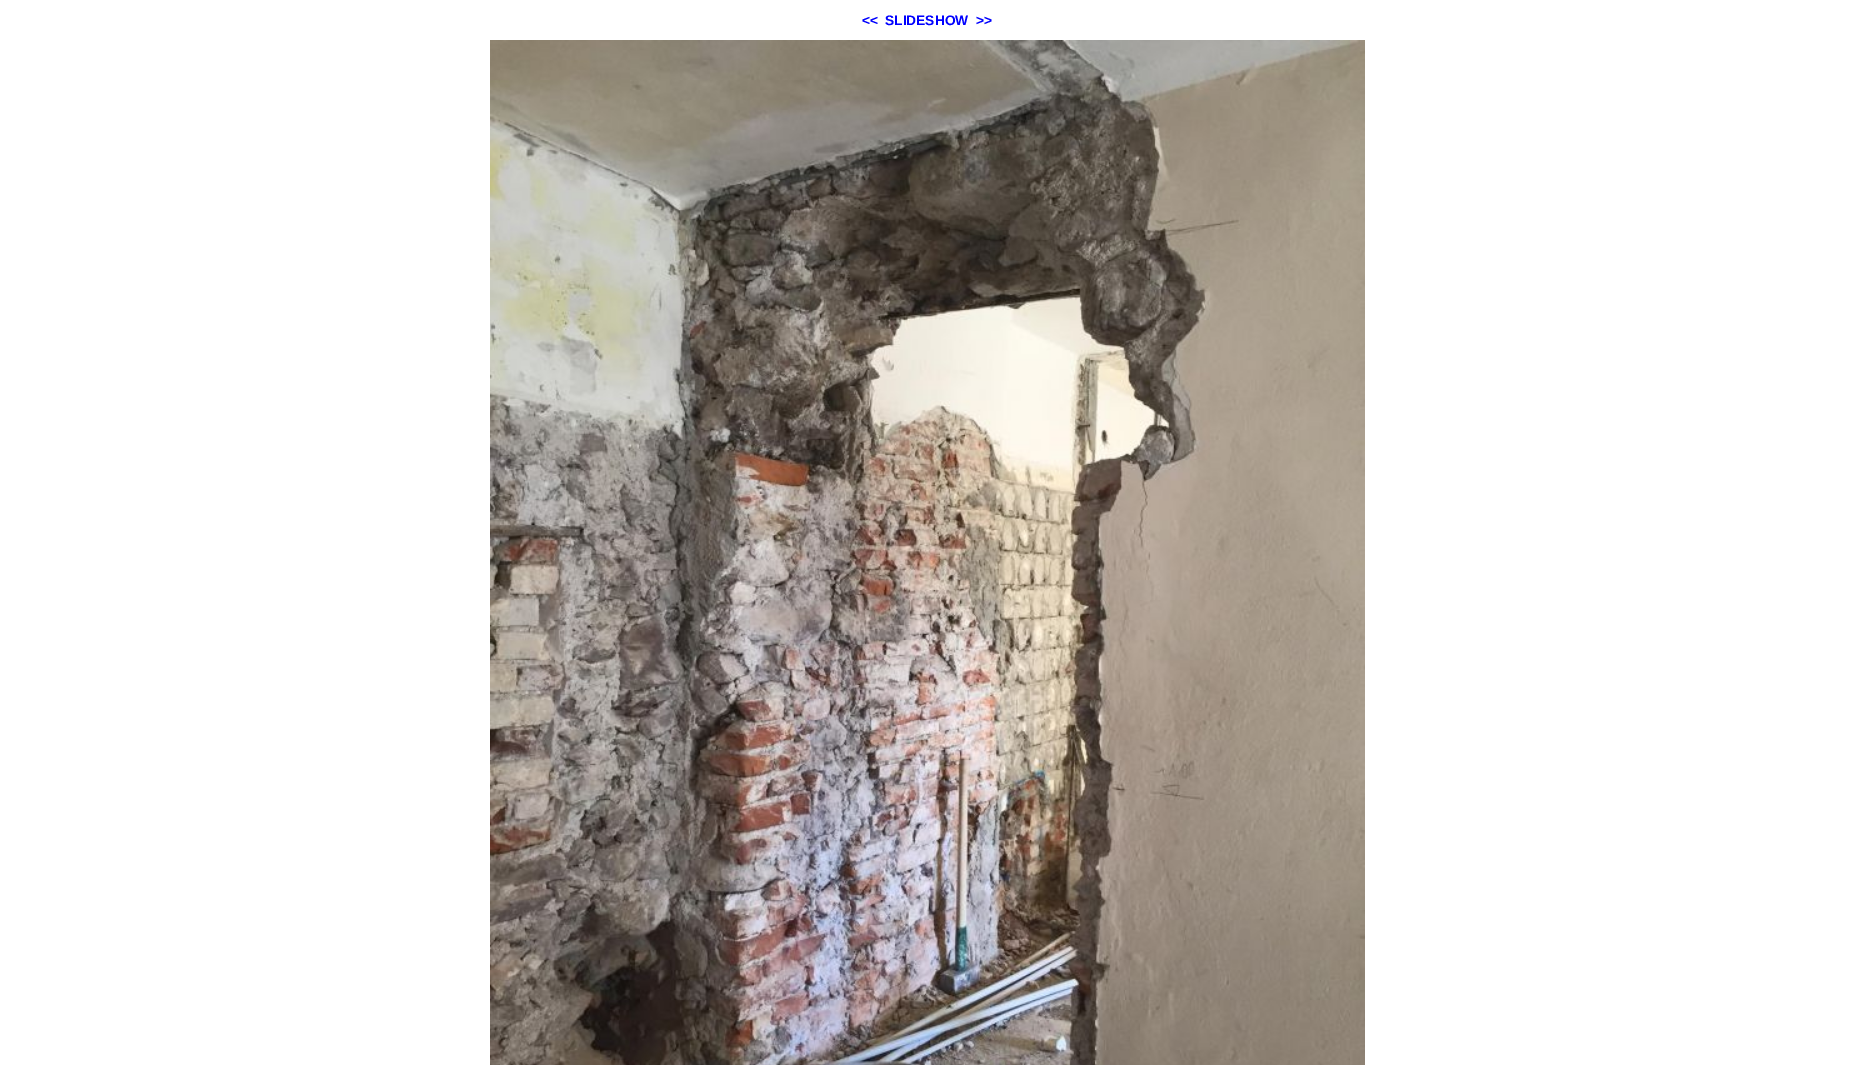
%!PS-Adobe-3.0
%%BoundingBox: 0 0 1853 1065
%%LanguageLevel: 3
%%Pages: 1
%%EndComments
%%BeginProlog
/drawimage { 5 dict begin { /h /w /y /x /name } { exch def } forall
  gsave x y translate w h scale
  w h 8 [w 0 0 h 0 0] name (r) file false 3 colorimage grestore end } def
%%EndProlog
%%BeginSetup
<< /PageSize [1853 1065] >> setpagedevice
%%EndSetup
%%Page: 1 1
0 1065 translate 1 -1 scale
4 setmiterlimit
1 setgray
0 0 1853 1065 rectfill
(images/1.raw) 490 40 875 1025 drawimage
/LiberationSans-Bold [13.75 0 0 -13.75 0 0] selectfont
0 0 1 setrgbcolor
862 25 moveto (<<) show
885 25 moveto (SLIDESHOW) show
976 25 moveto (>>) show
showpage
%%EOF
